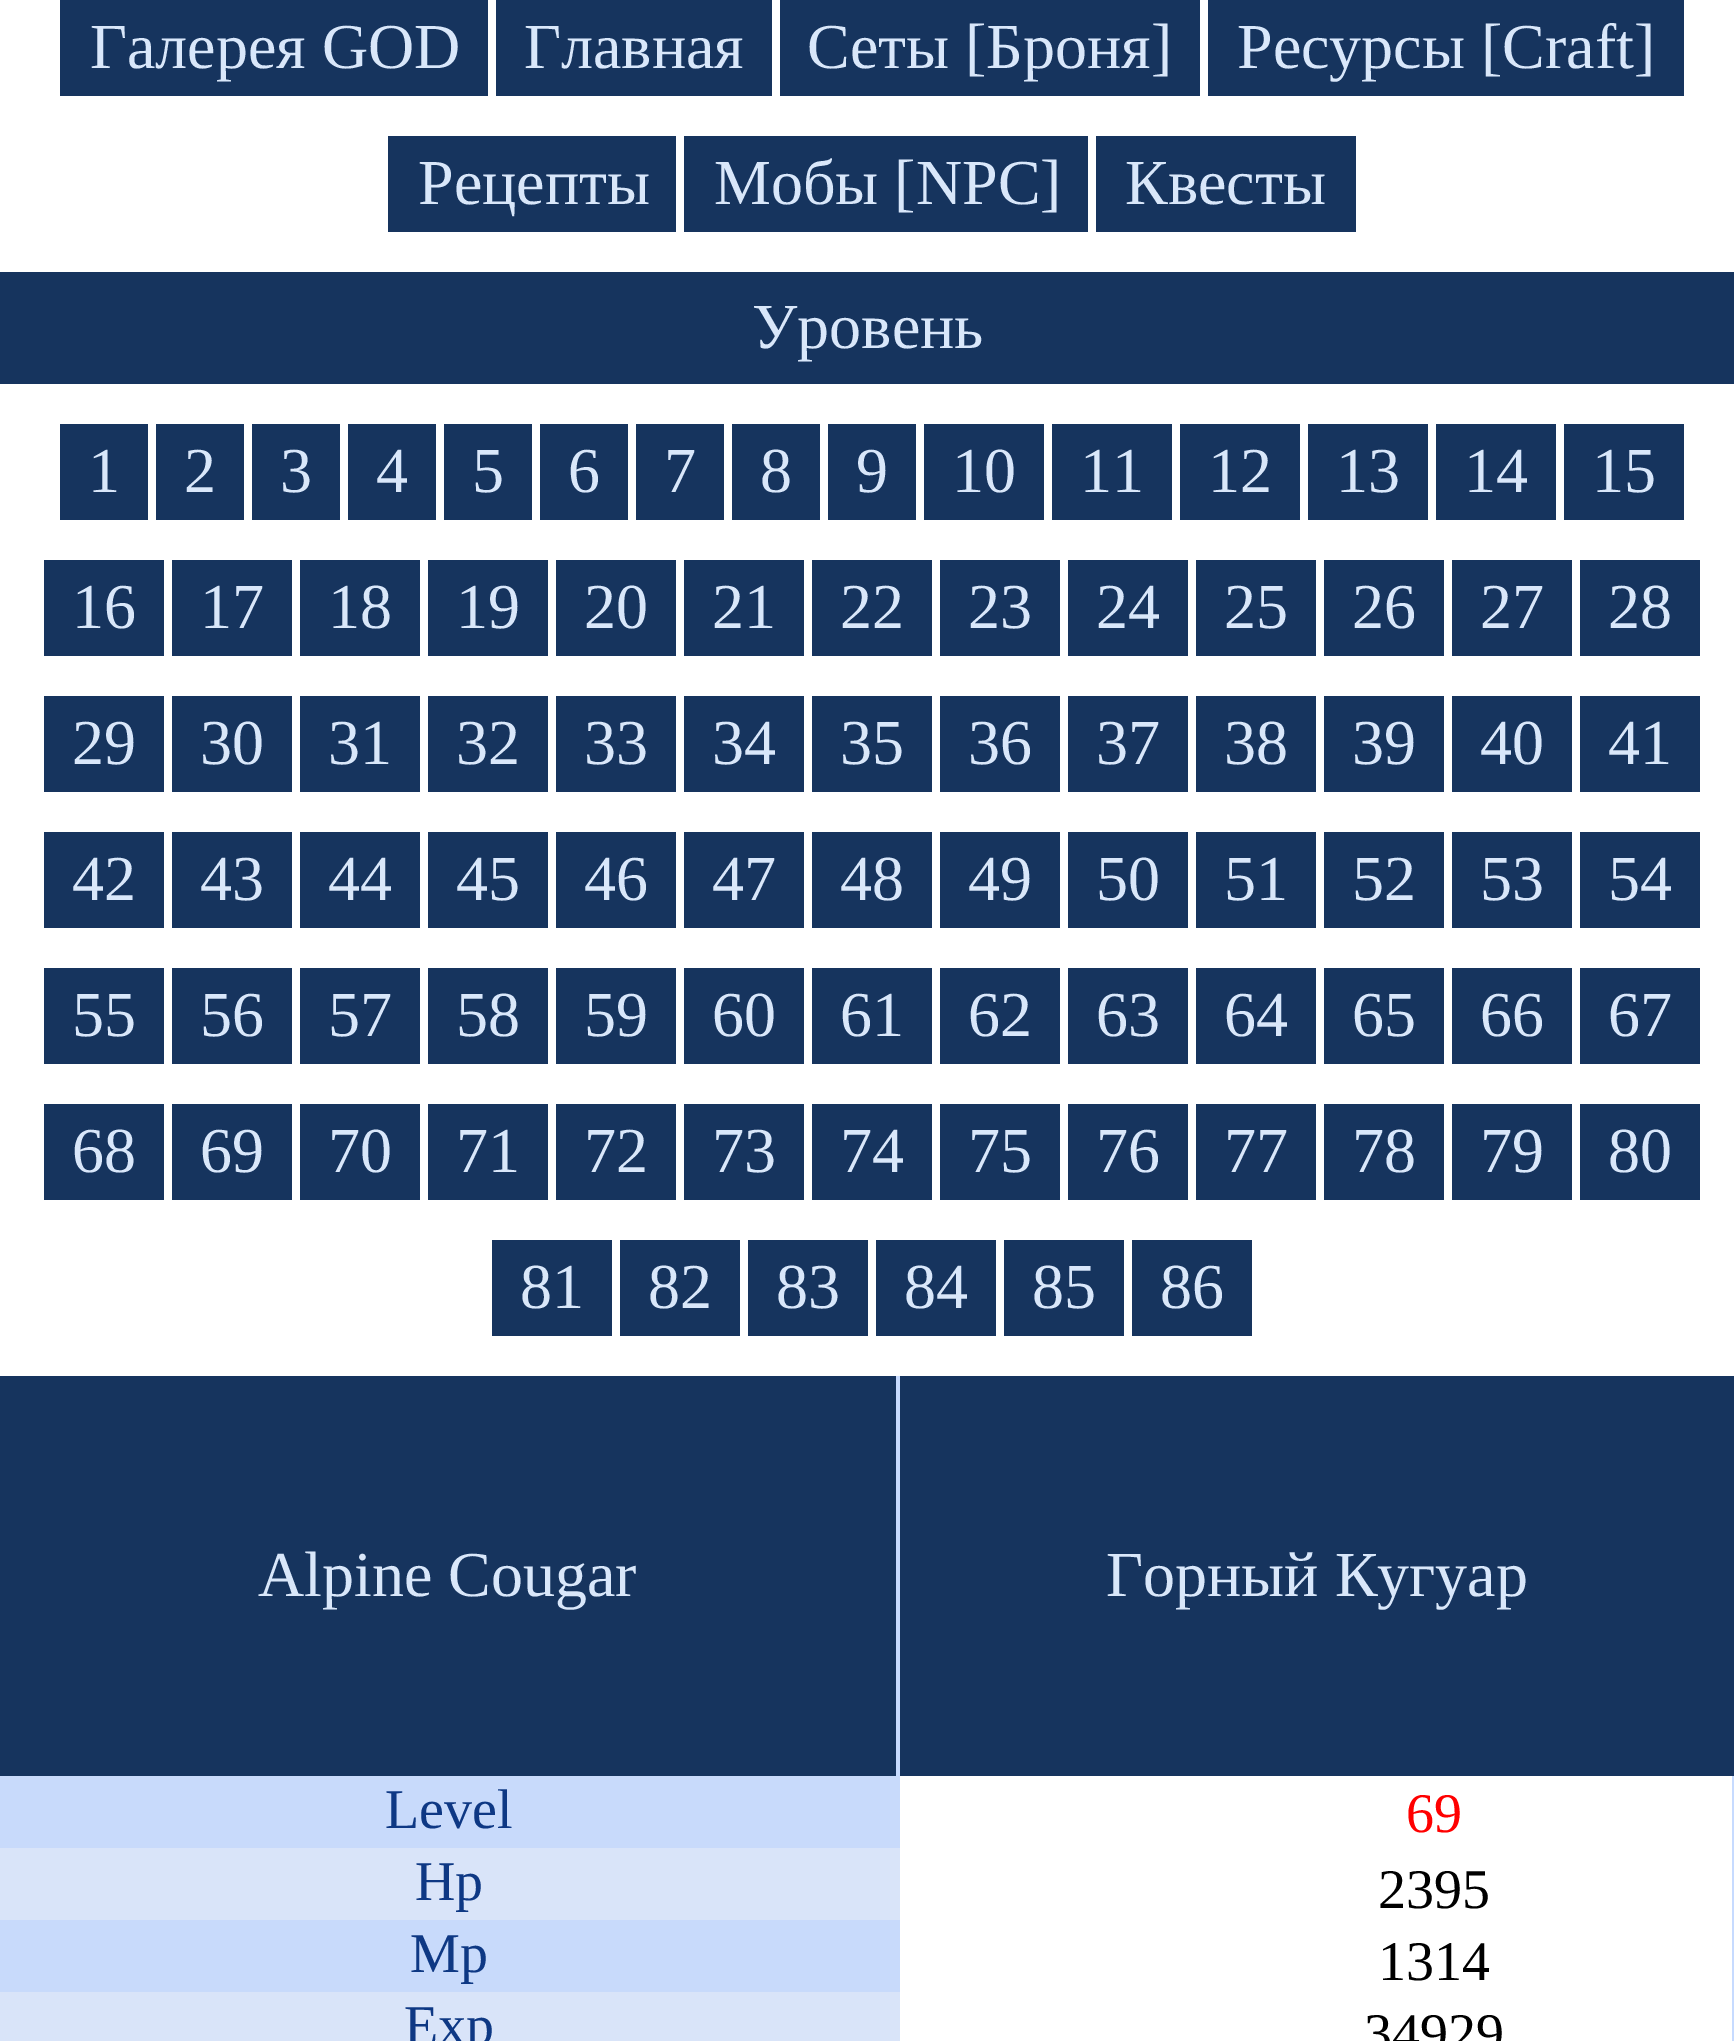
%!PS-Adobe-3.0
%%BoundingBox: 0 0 1734 2041
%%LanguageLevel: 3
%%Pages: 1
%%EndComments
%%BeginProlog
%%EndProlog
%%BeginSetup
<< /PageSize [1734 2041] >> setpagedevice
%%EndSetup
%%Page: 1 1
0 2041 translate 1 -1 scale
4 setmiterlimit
1 setgray
0 0 1734 2041 rectfill
0.086 0.204 0.369 setrgbcolor
60 0 428 96 rectfill
496 0 276 96 rectfill
780 0 420 96 rectfill
1208 0 476 96 rectfill
388 136 288 96 rectfill
684 136 404 96 rectfill
1096 136 260 96 rectfill
0 272 1734 112 rectfill
60 424 88 96 rectfill
156 424 88 96 rectfill
252 424 88 96 rectfill
348 424 88 96 rectfill
444 424 88 96 rectfill
540 424 88 96 rectfill
636 424 88 96 rectfill
732 424 88 96 rectfill
828 424 88 96 rectfill
924 424 120 96 rectfill
1052 424 120 96 rectfill
1180 424 120 96 rectfill
1308 424 120 96 rectfill
1436 424 120 96 rectfill
1564 424 120 96 rectfill
44 560 120 96 rectfill
172 560 120 96 rectfill
300 560 120 96 rectfill
428 560 120 96 rectfill
556 560 120 96 rectfill
684 560 120 96 rectfill
812 560 120 96 rectfill
940 560 120 96 rectfill
1068 560 120 96 rectfill
1196 560 120 96 rectfill
1324 560 120 96 rectfill
1452 560 120 96 rectfill
1580 560 120 96 rectfill
44 696 120 96 rectfill
172 696 120 96 rectfill
300 696 120 96 rectfill
428 696 120 96 rectfill
556 696 120 96 rectfill
684 696 120 96 rectfill
812 696 120 96 rectfill
940 696 120 96 rectfill
1068 696 120 96 rectfill
1196 696 120 96 rectfill
1324 696 120 96 rectfill
1452 696 120 96 rectfill
1580 696 120 96 rectfill
44 832 120 96 rectfill
172 832 120 96 rectfill
300 832 120 96 rectfill
428 832 120 96 rectfill
556 832 120 96 rectfill
684 832 120 96 rectfill
812 832 120 96 rectfill
940 832 120 96 rectfill
1068 832 120 96 rectfill
1196 832 120 96 rectfill
1324 832 120 96 rectfill
1452 832 120 96 rectfill
1580 832 120 96 rectfill
44 968 120 96 rectfill
172 968 120 96 rectfill
300 968 120 96 rectfill
428 968 120 96 rectfill
556 968 120 96 rectfill
684 968 120 96 rectfill
812 968 120 96 rectfill
940 968 120 96 rectfill
1068 968 120 96 rectfill
1196 968 120 96 rectfill
1324 968 120 96 rectfill
1452 968 120 96 rectfill
1580 968 120 96 rectfill
44 1104 120 96 rectfill
172 1104 120 96 rectfill
300 1104 120 96 rectfill
428 1104 120 96 rectfill
556 1104 120 96 rectfill
684 1104 120 96 rectfill
812 1104 120 96 rectfill
940 1104 120 96 rectfill
1068 1104 120 96 rectfill
1196 1104 120 96 rectfill
1324 1104 120 96 rectfill
1452 1104 120 96 rectfill
1580 1104 120 96 rectfill
492 1240 120 96 rectfill
620 1240 120 96 rectfill
748 1240 120 96 rectfill
876 1240 120 96 rectfill
1004 1240 120 96 rectfill
1132 1240 120 96 rectfill
0 1376 896 400 rectfill
0.78 0.859 1 setrgbcolor
896 1376 4 400 rectfill
0.086 0.204 0.369 setrgbcolor
900 1376 834 400 rectfill
0.784 0.855 0.984 setrgbcolor
0 1776 900 72 rectfill
0.851 0.894 0.976 setrgbcolor
0 1848 900 72 rectfill
0.784 0.855 0.984 setrgbcolor
0 1920 900 72 rectfill
0.851 0.894 0.976 setrgbcolor
0 1992 900 49 rectfill
0.78 0.859 1 setrgbcolor
1732 1776 2 265 rectfill
/LiberationSerif-Regular [64 0 0 -64 0 0] selectfont
0.851 0.906 0.98 setrgbcolor
90 68 moveto (Галерея GOD) show
524 68 moveto (Главная) show
807 68 moveto (Сеты [Броня]) show
1237 68 moveto (Ресурсы [Craft]) show
418 204 moveto (Рецепты) show
714 204 moveto (Мобы [NPC]) show
1125 204 moveto (Квесты) show
752 348 moveto (Уровень) show
88 492 moveto (1) show
184 492 moveto (2) show
280 492 moveto (3) show
376 492 moveto (4) show
472 492 moveto (5) show
568 492 moveto (6) show
664 492 moveto (7) show
760 492 moveto (8) show
856 492 moveto (9) show
952 492 moveto (10) show
1080 492 moveto (11) show
1208 492 moveto (12) show
1336 492 moveto (13) show
1464 492 moveto (14) show
1592 492 moveto (15) show
72 628 moveto (16) show
200 628 moveto (17) show
328 628 moveto (18) show
456 628 moveto (19) show
584 628 moveto (20) show
712 628 moveto (21) show
840 628 moveto (22) show
968 628 moveto (23) show
1096 628 moveto (24) show
1224 628 moveto (25) show
1352 628 moveto (26) show
1480 628 moveto (27) show
1608 628 moveto (28) show
72 764 moveto (29) show
200 764 moveto (30) show
328 764 moveto (31) show
456 764 moveto (32) show
584 764 moveto (33) show
712 764 moveto (34) show
840 764 moveto (35) show
968 764 moveto (36) show
1096 764 moveto (37) show
1224 764 moveto (38) show
1352 764 moveto (39) show
1480 764 moveto (40) show
1608 764 moveto (41) show
72 900 moveto (42) show
200 900 moveto (43) show
328 900 moveto (44) show
456 900 moveto (45) show
584 900 moveto (46) show
712 900 moveto (47) show
840 900 moveto (48) show
968 900 moveto (49) show
1096 900 moveto (50) show
1224 900 moveto (51) show
1352 900 moveto (52) show
1480 900 moveto (53) show
1608 900 moveto (54) show
72 1036 moveto (55) show
200 1036 moveto (56) show
328 1036 moveto (57) show
456 1036 moveto (58) show
584 1036 moveto (59) show
712 1036 moveto (60) show
840 1036 moveto (61) show
968 1036 moveto (62) show
1096 1036 moveto (63) show
1224 1036 moveto (64) show
1352 1036 moveto (65) show
1480 1036 moveto (66) show
1608 1036 moveto (67) show
72 1172 moveto (68) show
200 1172 moveto (69) show
328 1172 moveto (70) show
456 1172 moveto (71) show
584 1172 moveto (72) show
712 1172 moveto (73) show
840 1172 moveto (74) show
968 1172 moveto (75) show
1096 1172 moveto (76) show
1224 1172 moveto (77) show
1352 1172 moveto (78) show
1480 1172 moveto (79) show
1608 1172 moveto (80) show
520 1308 moveto (81) show
648 1308 moveto (82) show
776 1308 moveto (83) show
904 1308 moveto (84) show
1032 1308 moveto (85) show
1160 1308 moveto (86) show
258 1596 moveto (Alpine Cougar) show
1106 1596 moveto (Горный Кугуар) show
/LiberationSerif-Regular [56 0 0 -56 0 0] selectfont
0.055 0.22 0.518 setrgbcolor
385 1828 moveto (Level) show
415 1900 moveto (Hp) show
410 1972 moveto (Mp) show
404 2044 moveto (Exp) show
1 0 0 setrgbcolor
1406 1832 moveto (69) show
0 setgray
1378 1908 moveto (2395) show
1378 1980 moveto (1314) show
1364 2052 moveto (34929) show
showpage
%%EOF
